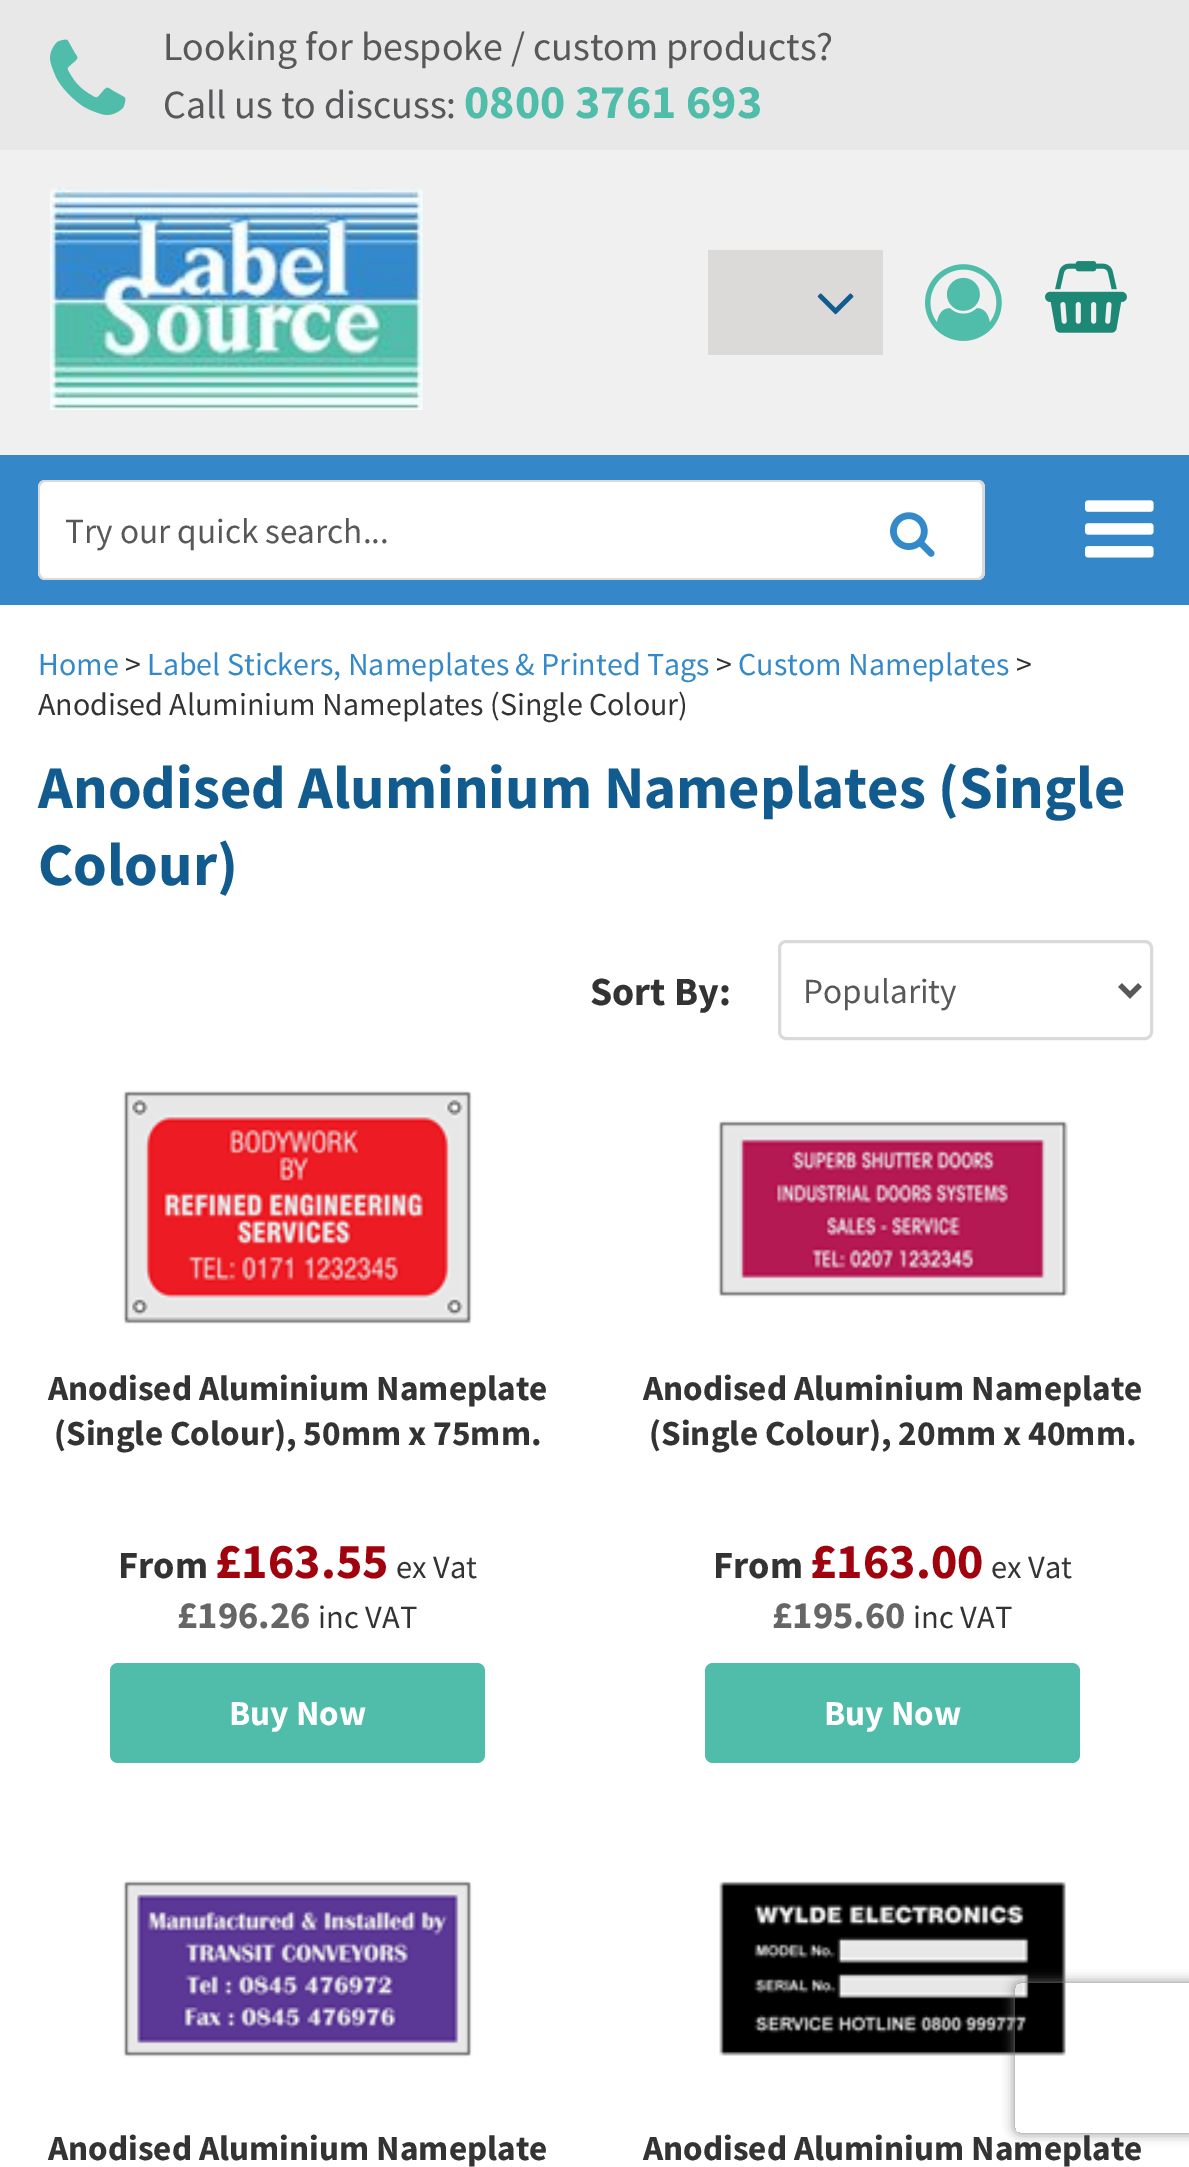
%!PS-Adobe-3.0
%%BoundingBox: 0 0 1189 2167
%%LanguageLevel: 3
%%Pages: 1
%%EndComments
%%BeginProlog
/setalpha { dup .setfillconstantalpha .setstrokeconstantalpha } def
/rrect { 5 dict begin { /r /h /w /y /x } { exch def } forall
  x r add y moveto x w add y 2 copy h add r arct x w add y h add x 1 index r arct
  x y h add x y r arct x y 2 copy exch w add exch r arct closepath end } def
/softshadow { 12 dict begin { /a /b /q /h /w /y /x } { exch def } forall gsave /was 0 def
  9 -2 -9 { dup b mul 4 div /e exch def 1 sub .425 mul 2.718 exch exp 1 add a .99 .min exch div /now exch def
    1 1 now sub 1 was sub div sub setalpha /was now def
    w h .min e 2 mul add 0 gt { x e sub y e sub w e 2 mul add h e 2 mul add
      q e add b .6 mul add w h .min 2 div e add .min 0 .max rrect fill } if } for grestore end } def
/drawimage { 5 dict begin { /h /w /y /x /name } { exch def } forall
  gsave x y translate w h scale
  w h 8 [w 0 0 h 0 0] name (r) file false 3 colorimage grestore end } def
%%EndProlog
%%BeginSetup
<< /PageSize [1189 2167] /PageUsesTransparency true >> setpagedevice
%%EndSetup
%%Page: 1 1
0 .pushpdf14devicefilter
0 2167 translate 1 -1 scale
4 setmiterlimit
1 setgray
0 0 1189 2167 rectfill
0.91 setgray
0 0 1189 150 rectfill
0.941 setgray
0 150 1189 305 rectfill
(images/1.raw) 50 39 76 76 drawimage
(images/2.raw) 50 187 373 223 drawimage
0.863 0.851 0.851 setrgbcolor
708 250 175 105 rectfill
(images/3.raw) 817 293 37 22 drawimage
(images/4.raw) 1045 261 82 72 drawimage
(images/5.raw) 925 264 77 77 drawimage
0.204 0.533 0.792 setrgbcolor
0 455 1189 150 rectfill
1 setgray
newpath 46 480 moveto 843 480 lineto 843 580 lineto 46 580 lineto 41.5 580 38 576.5 38 572 curveto 38 488 lineto 38 483.5 41.5 480 46 480 curveto closepath fill
0.863 0.851 0.851 setrgbcolor
newpath 45 480 moveto 842 480 lineto 842 580 lineto 45 580 lineto 41 580 38 577 38 572 curveto 38 488 lineto 38 483 41 480 45 480 curveto closepath 45 482 moveto 842 482 lineto 842 578 lineto 45 578 lineto 42 578 40 575 40 572 curveto 40 488 lineto 40 485 42 482 45 482 curveto closepath eofill
1 setgray
newpath 843 480 moveto 977 480 lineto 981.5 480 985 483.5 985 488 curveto 985 572 lineto 985 576.5 981.5 580 977 580 curveto 843 580 lineto closepath fill
0.863 0.851 0.851 setrgbcolor
newpath 842 480 moveto 978 480 lineto 982 480 985 483 985 488 curveto 985 572 lineto 985 577 982 580 978 580 curveto 842 580 lineto closepath 842 482 moveto 978 482 lineto 980 482 982 485 982 488 curveto 982 572 lineto 982 575 980 578 978 578 curveto 842 578 lineto closepath eofill
(images/6.raw) 890 512 45 45 drawimage
(images/7.raw) 1085 500 69 58 drawimage
3 setlinewidth
779.5 941.5 372 97 6.5 rrect stroke
0.345 0.345 0.353 setrgbcolor
5 setlinewidth
newpath 1120 985 moveto 1130 995 lineto 1140 985 lineto stroke
(images/8.raw) 122 1090 351 234 drawimage
0.314 0.741 0.667 setrgbcolor
110 1663 375 100 8 rrect fill
(images/9.raw) 717 1120 351 178 drawimage
705 1663 375 100 8 rrect fill
(images/10.raw) 122 1880 351 178 drawimage
(images/11.raw) 719 1881 347 175 drawimage
gsave
newpath 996 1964 moveto 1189 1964 lineto 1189 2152 lineto 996 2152 lineto closepath 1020 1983 moveto 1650 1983 lineto 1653 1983 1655 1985 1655 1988 curveto 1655 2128 lineto 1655 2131 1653 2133 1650 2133 curveto 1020 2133 lineto 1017 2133 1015 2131 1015 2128 curveto 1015 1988 lineto 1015 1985 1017 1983 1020 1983 curveto closepath eoclip newpath
0.502 setgray
1015 1983 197 150 5 6 1 softshadow
grestore
/SourceSansPro-Regular [40 0 0 -40 0 0] selectfont
0.345 0.345 0.353 setrgbcolor
163 60 moveto (Looking for bespoke / custom products?) show
163 118 moveto (Call us to discuss:) show
/SourceSansPro-Bold [48 0 0 -48 0 0] selectfont
0.314 0.741 0.667 setrgbcolor
464 118 moveto (0800 3761 693) show
/SourceSansPro-Regular [35.25 0 0 -35.25 0 0] selectfont
0.345 0.345 0.353 setrgbcolor
65 543 moveto (Try our quick search...) show
/SourceSansPro-Regular [32 0 0 -32 0 0] selectfont
0.204 0.537 0.792 setrgbcolor
38 675 moveto (Home) show
0.2 setgray
125 675 moveto (>) show
0.204 0.537 0.792 setrgbcolor
147 675 moveto (Label Stickers, Nameplates & Printed Tags) show
0.2 setgray
716 675 moveto (>) show
0.204 0.537 0.792 setrgbcolor
738 675 moveto (Custom Nameplates) show
0.2 setgray
1016 675 moveto (>) show
38 715 moveto (Anodised Aluminium Nameplates \(Single Colour\)) show
/SourceSansPro-Bold [60.75 0 0 -60.75 0 0] selectfont
0.071 0.357 0.557 setrgbcolor
38 808 moveto (Anodised Aluminium Nameplates \(Single) show
38 885 moveto (Colour\)) show
/SourceSansPro-Bold [40 0 0 -40 0 0] selectfont
0.2 setgray
590 1005 moveto (Sort By:) show
/SourceSansPro-Regular [35.25 0 0 -35.25 0 0] selectfont
0.345 0.345 0.353 setrgbcolor
803 1003 moveto (Popularity) show
/SourceSansPro-Bold [35.25 0 0 -35.25 0 0] selectfont
0.2 setgray
48 1400 moveto (Anodised Aluminium Nameplate) show
54 1445 moveto (\(Single Colour\), 50mm x 75mm.) show
/SourceSansPro-Bold [38.5 0 0 -38.5 0 0] selectfont
118 1578 moveto (From) show
/SourceSansPro-Bold [50 0 0 -50 0 0] selectfont
0.627 0.012 0.055 setrgbcolor
215 1578 moveto (£163.55) show
/SourceSansPro-Regular [32.5 0 0 -32.5 0 0] selectfont
0.2 setgray
396 1578 moveto (ex Vat) show
/SourceSansPro-Bold [38.5 0 0 -38.5 0 0] selectfont
0.4 setgray
177 1628 moveto (£196.26) show
/SourceSansPro-Regular [32.5 0 0 -32.5 0 0] selectfont
0.2 setgray
318 1628 moveto (inc VAT) show
/SourceSansPro-Bold [35.25 0 0 -35.25 0 0] selectfont
1 setgray
229 1725 moveto (Buy Now) show
0.2 setgray
643 1400 moveto (Anodised Aluminium Nameplate) show
649 1445 moveto (\(Single Colour\), 20mm x 40mm.) show
/SourceSansPro-Bold [38.5 0 0 -38.5 0 0] selectfont
713 1578 moveto (From) show
/SourceSansPro-Bold [50 0 0 -50 0 0] selectfont
0.627 0.012 0.055 setrgbcolor
810 1578 moveto (£163.00) show
/SourceSansPro-Regular [32.5 0 0 -32.5 0 0] selectfont
0.2 setgray
991 1578 moveto (ex Vat) show
/SourceSansPro-Bold [38.5 0 0 -38.5 0 0] selectfont
0.4 setgray
772 1628 moveto (£195.60) show
/SourceSansPro-Regular [32.5 0 0 -32.5 0 0] selectfont
0.2 setgray
913 1628 moveto (inc VAT) show
/SourceSansPro-Bold [35.25 0 0 -35.25 0 0] selectfont
1 setgray
824 1725 moveto (Buy Now) show
0.2 setgray
48 2160 moveto (Anodised Aluminium Nameplate) show
643 2160 moveto (Anodised Aluminium Nameplate) show
.poppdf14devicefilter showpage
%%EOF
